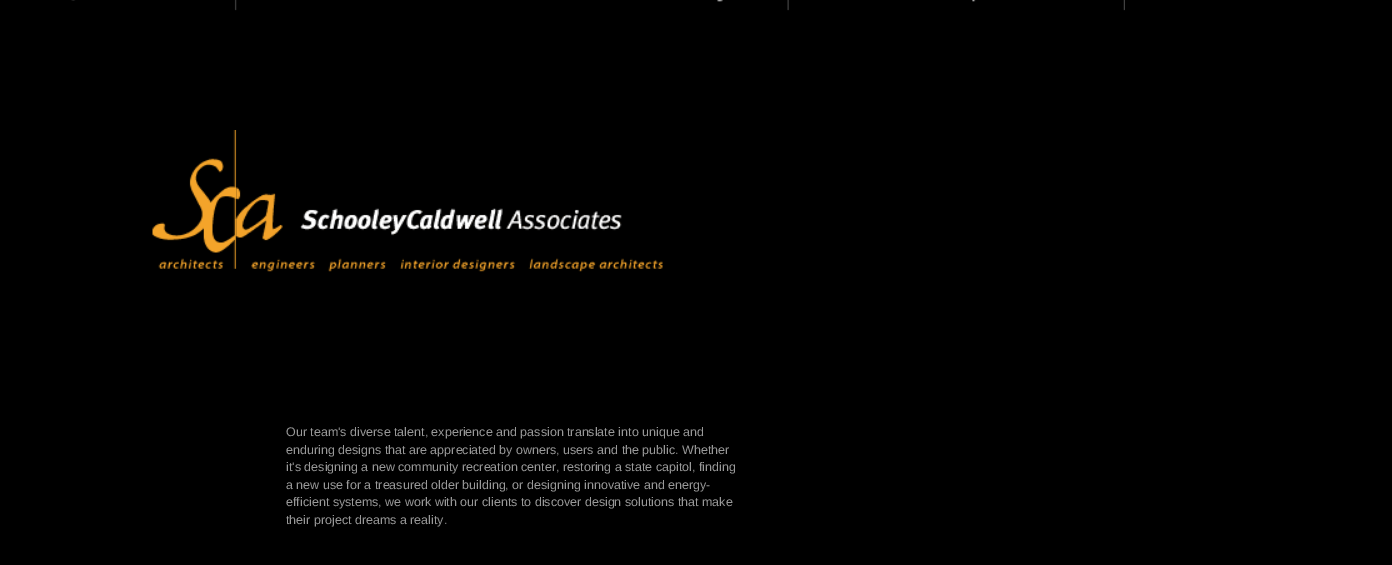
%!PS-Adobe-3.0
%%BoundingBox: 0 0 1392 565
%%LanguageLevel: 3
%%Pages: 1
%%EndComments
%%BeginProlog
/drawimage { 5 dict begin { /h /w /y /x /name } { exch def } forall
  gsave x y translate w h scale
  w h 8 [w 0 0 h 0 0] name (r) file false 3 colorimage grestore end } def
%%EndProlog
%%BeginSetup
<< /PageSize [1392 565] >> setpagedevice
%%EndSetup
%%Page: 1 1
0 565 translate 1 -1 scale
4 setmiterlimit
0 setgray
0 0 1392 565 rectfill
(images/1.raw) 71 0 166 11 drawimage
(images/2.raw) 717 0 6 2 drawimage
(images/3.raw) 787 0 2 11 drawimage
(images/4.raw) 972 0 4 2 drawimage
(images/5.raw) 1123 0 2 11 drawimage
(images/6.raw) 152 130 85 139 drawimage
(images/7.raw) 236 130 427 142 drawimage
/LiberationSans-Regular [12.5 0 0 -12.5 0 0] selectfont
0.6 setgray
286 436 moveto (Our team's diverse talent, experience and passion translate into unique and) show
286 454 moveto (enduring designs that are appreciated by owners, users and the public. Whether) show
286 471 moveto (it's designing a new community recreation center, restoring a state capitol, finding) show
286 489 moveto (a new use for a treasured older building, or designing innovative and energy-) show
286 506 moveto (efficient systems, we work with our clients to discover design solutions that make) show
286 524 moveto (their project dreams a reality.) show
showpage
%%EOF
